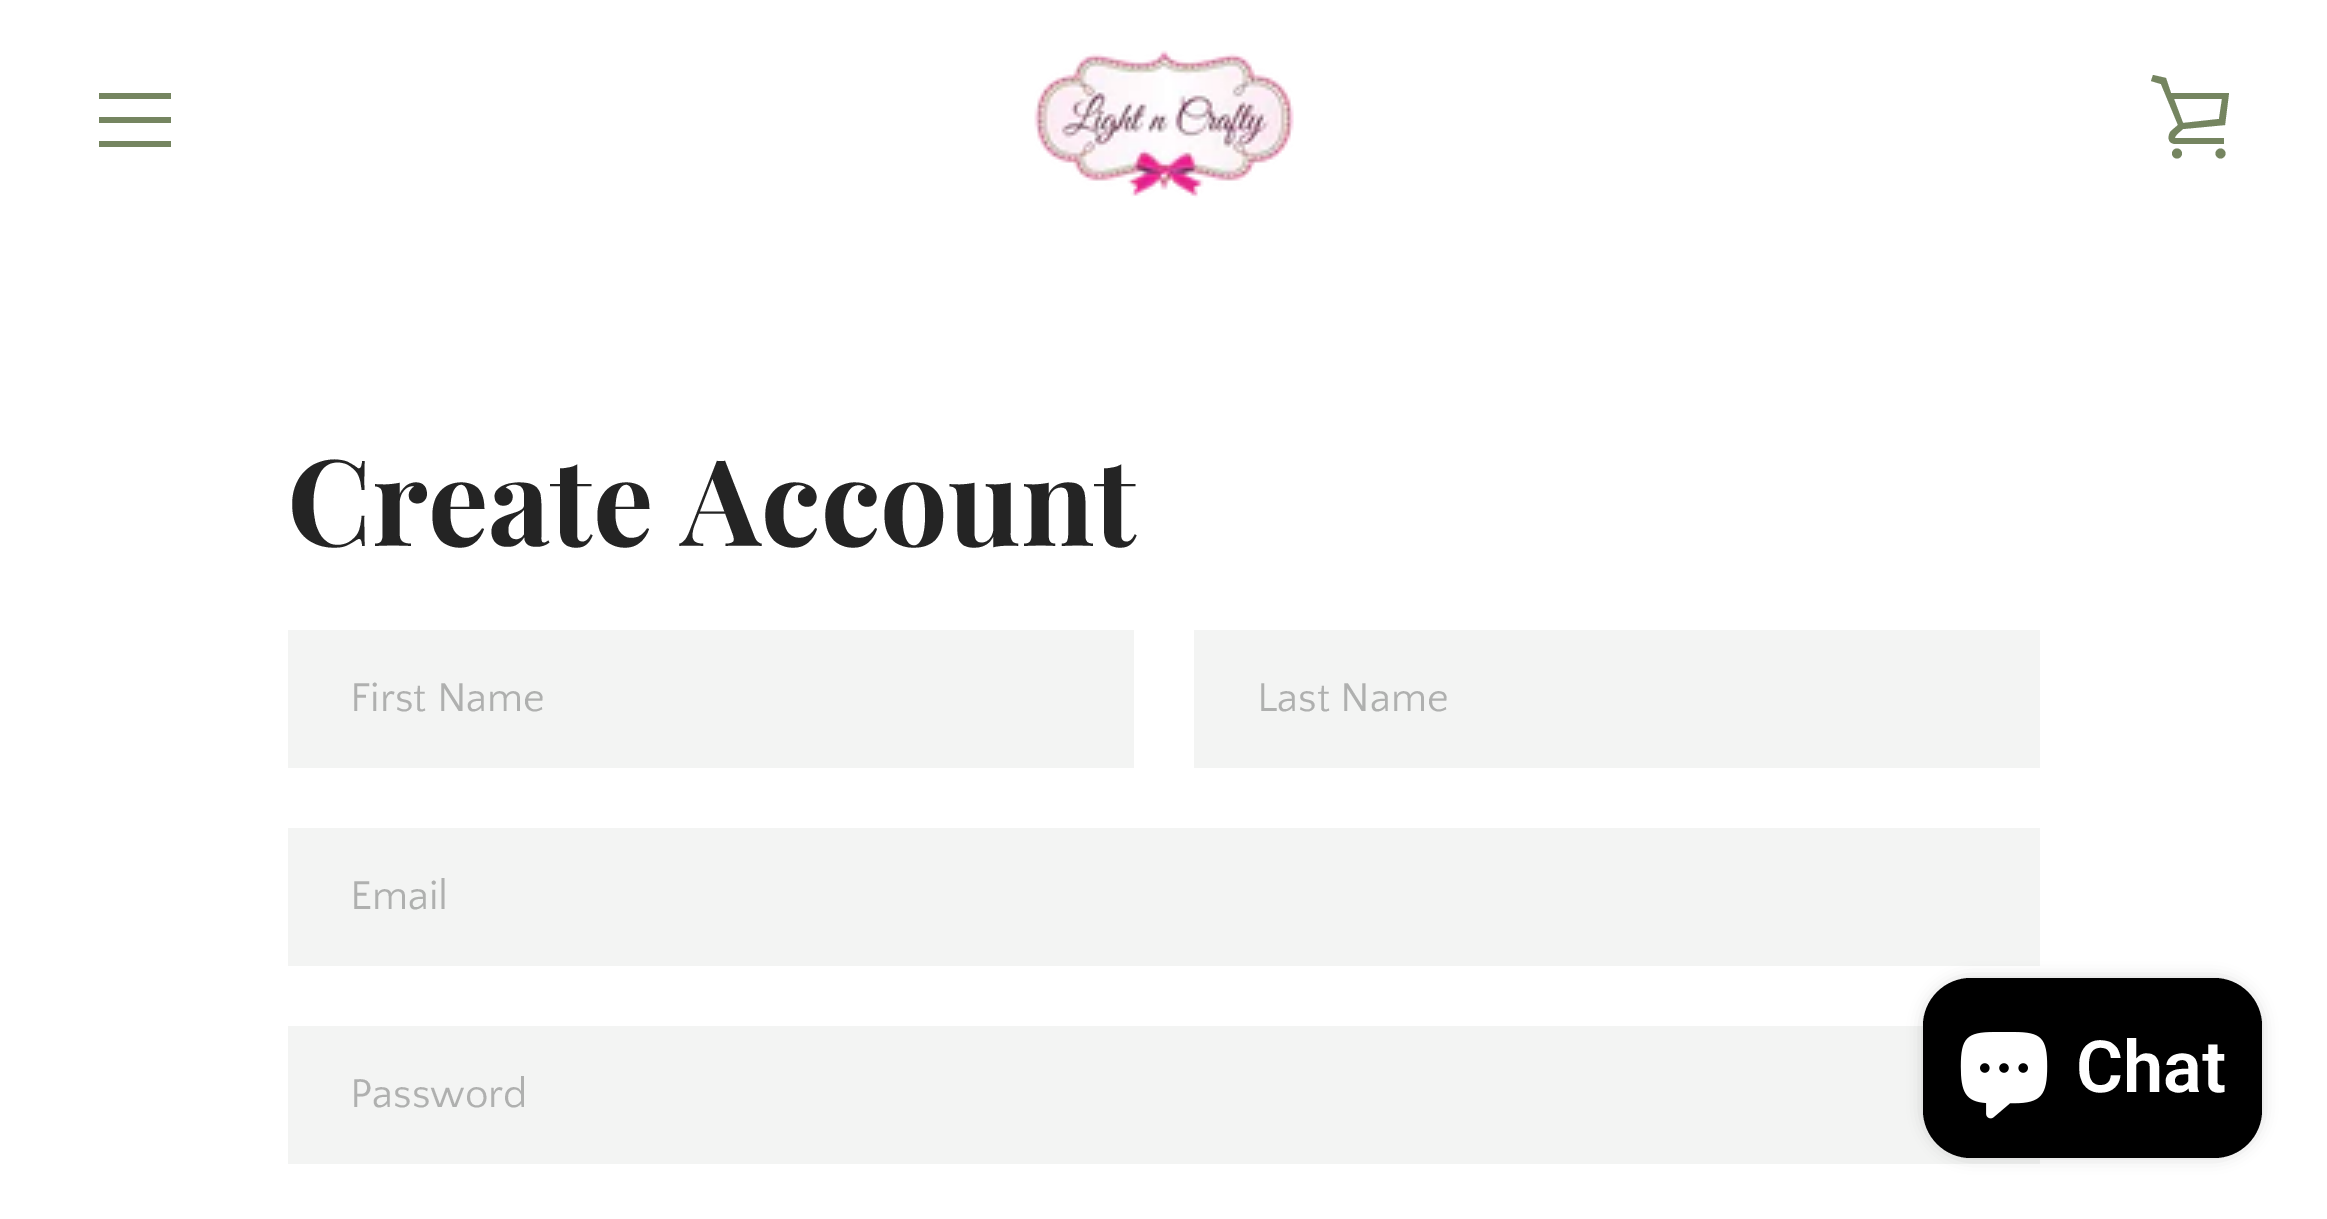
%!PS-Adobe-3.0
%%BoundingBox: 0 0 2327 1219
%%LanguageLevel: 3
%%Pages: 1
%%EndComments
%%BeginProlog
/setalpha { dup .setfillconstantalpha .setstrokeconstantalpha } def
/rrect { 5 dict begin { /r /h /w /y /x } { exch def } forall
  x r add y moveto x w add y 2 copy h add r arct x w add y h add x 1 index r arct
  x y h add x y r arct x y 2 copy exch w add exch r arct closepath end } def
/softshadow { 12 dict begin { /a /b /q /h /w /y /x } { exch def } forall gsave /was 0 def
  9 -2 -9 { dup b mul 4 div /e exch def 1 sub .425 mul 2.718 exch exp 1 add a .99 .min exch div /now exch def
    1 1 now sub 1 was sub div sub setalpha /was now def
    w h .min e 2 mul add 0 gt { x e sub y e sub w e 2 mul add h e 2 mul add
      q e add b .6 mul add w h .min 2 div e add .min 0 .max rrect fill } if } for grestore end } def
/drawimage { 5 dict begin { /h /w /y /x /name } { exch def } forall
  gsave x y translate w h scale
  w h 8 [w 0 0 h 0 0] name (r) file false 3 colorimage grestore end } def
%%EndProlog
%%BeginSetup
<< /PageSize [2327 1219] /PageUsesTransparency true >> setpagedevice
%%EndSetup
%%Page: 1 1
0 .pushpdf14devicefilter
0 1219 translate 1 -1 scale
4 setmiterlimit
1 setgray
0 0 2327 1219 rectfill
0.459 0.522 0.376 setrgbcolor
99 93 72 6 rectfill
99 117 72 6 rectfill
99 141 72 6 rectfill
(images/1.raw) 1034 50 260 148 drawimage
newpath 2224 144 moveto 2224 138 lineto 2175 138 lineto 2175 135 2181 131 2183 129 curveto 2225 125 lineto 2229 93 lineto 2171 93 lineto 2166 78 lineto 2153 75 lineto 2151 81 lineto 2161 84 lineto 2178 125 lineto 2171 131 lineto 2169 133 2168 137 2169 140 curveto 2170 143 2173 144 2176 144 curveto closepath 2174 99 moveto 2222 99 lineto 2219 119 lineto 2183 123 lineto closepath fill
newpath 2177 153.5 5 0 360 arc closepath fill
newpath 2220.5 153.5 5 0 360 arc closepath fill
0.953 0.957 0.953 setrgbcolor
288 630 846 138 rectfill
1194 630 846 138 rectfill
288 828 1752 138 rectfill
288 1026 1752 138 rectfill
0 setgray
1923 978 339 180 48 7.5 0.15 softshadow
1923 978 339 180 48 rrect fill
(images/2.raw) 1960 1032 88 87 drawimage
/PlayfairDisplay-Bold [120 0 0 -120 0 0] selectfont
0.141 setgray
287 546 moveto (Create Account) show
/QuattrocentoSans-Regular [42 0 0 -42 0 0] selectfont
0.686 0.69 0.686 setrgbcolor
350 711 moveto (First Name) show
1257 711 moveto (Last Name) show
350 909 moveto (Email) show
350 1107 moveto (Password) show
/Roboto-SemiBold [72 0 0 -72 0 0] selectfont
1 setgray
2076 1092 moveto (Chat) show
.poppdf14devicefilter showpage
%%EOF
